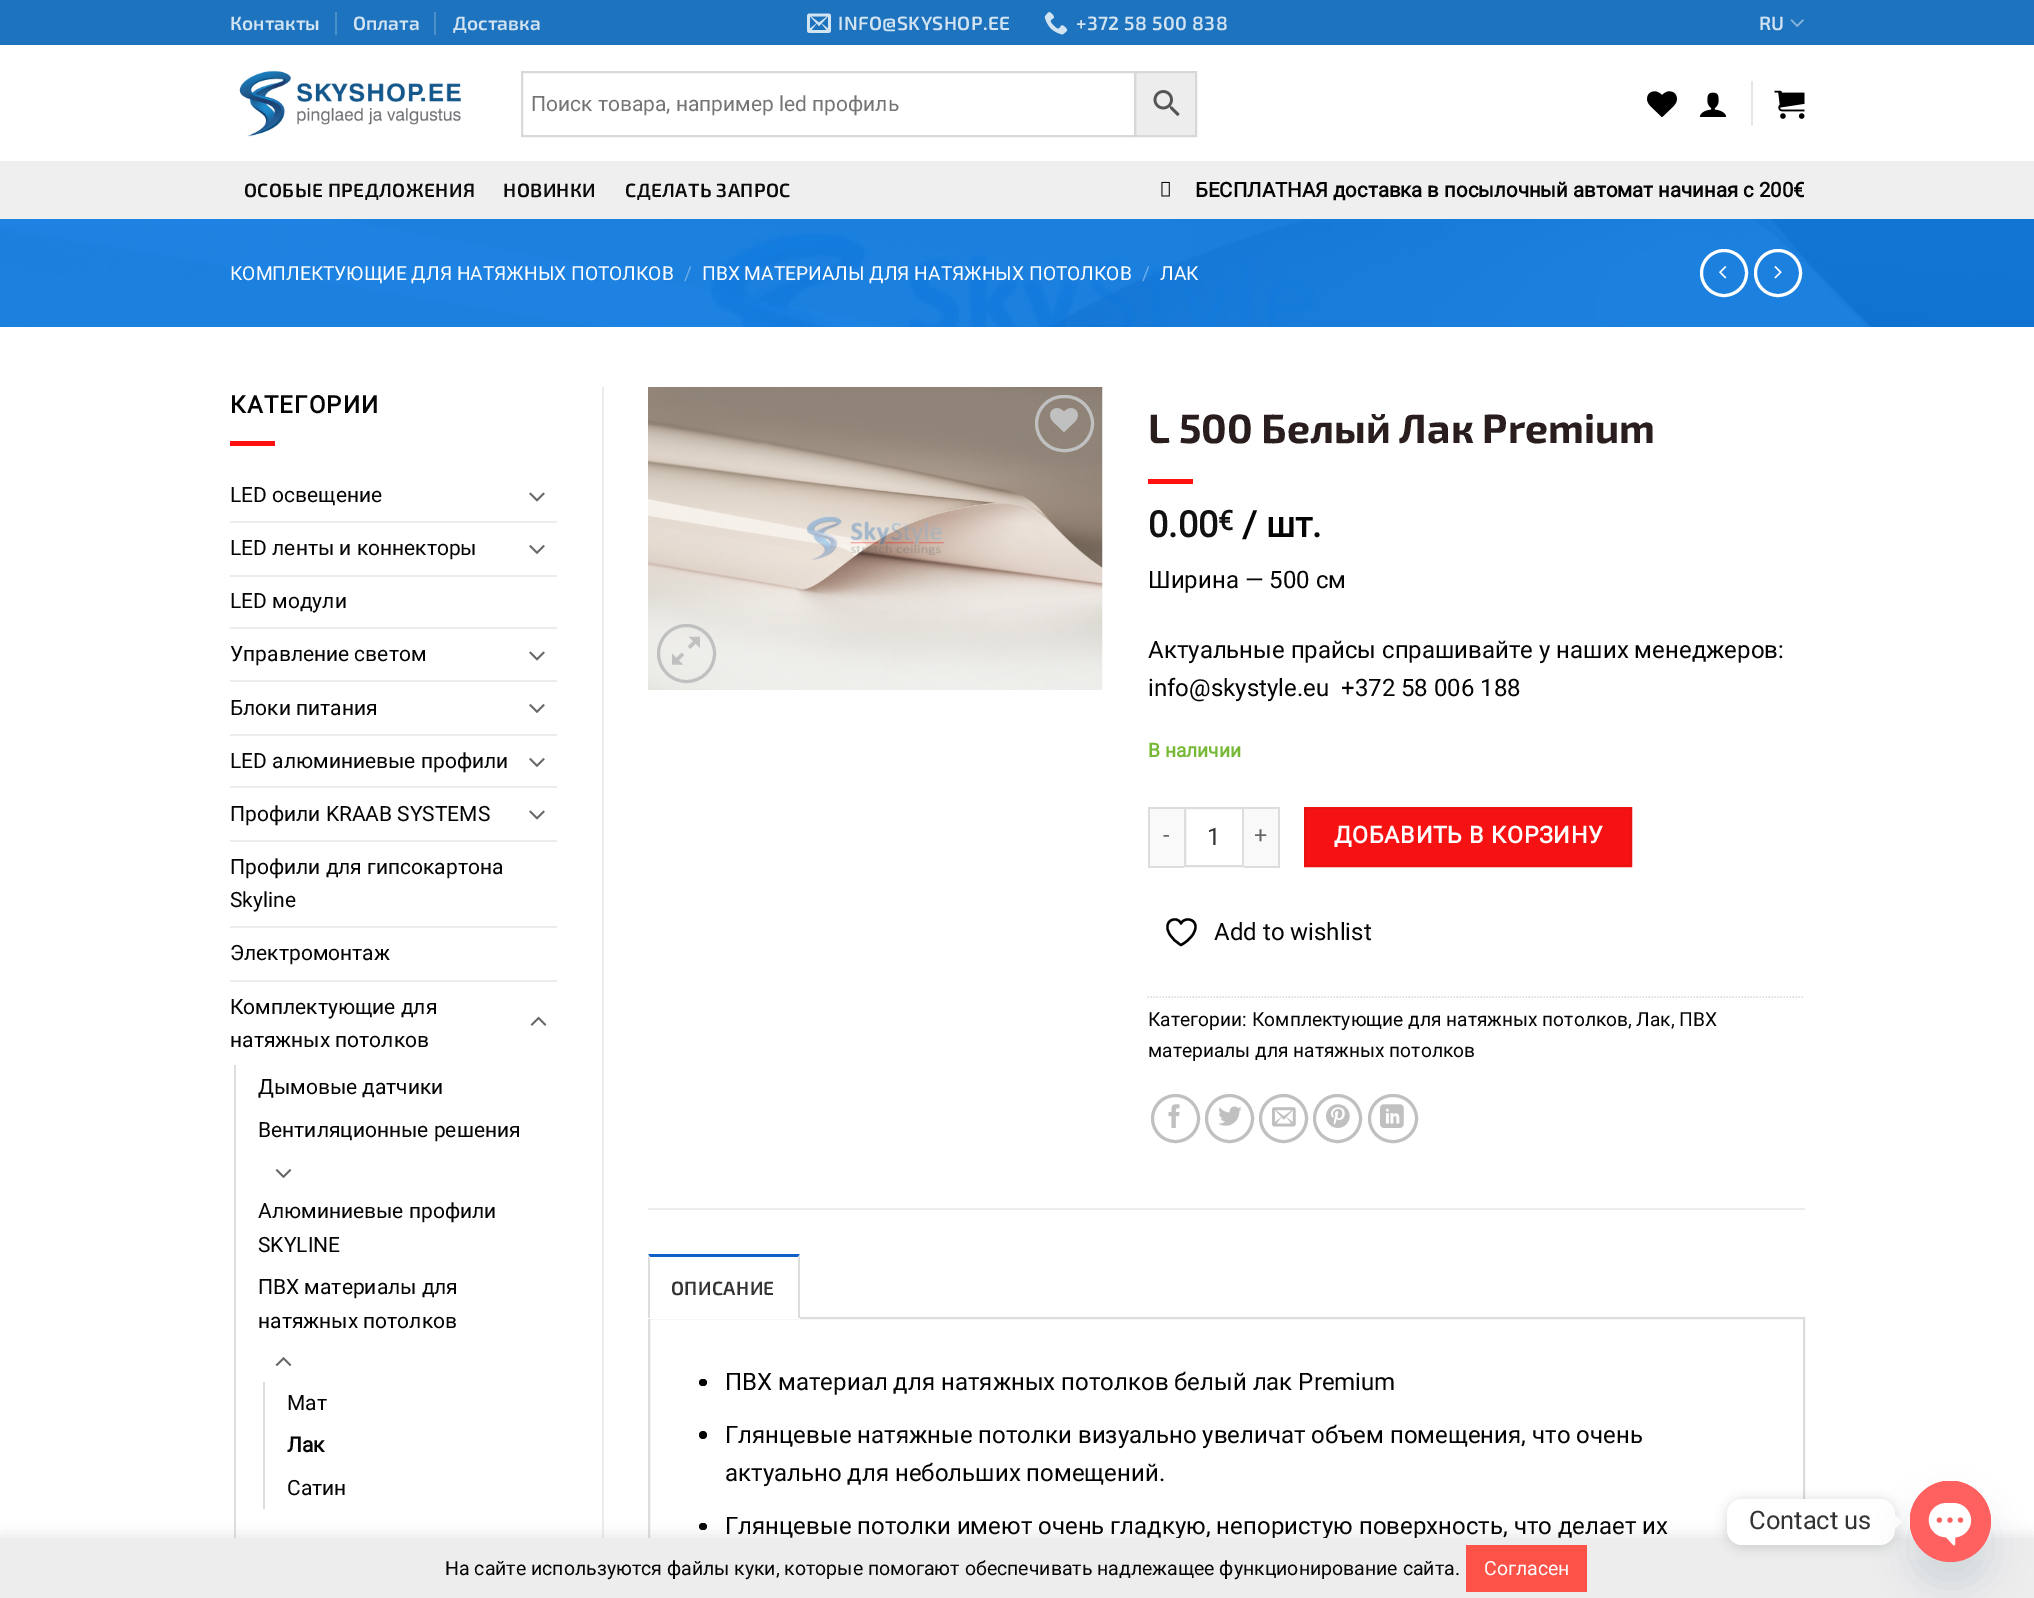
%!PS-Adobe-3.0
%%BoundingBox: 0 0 2034 1598
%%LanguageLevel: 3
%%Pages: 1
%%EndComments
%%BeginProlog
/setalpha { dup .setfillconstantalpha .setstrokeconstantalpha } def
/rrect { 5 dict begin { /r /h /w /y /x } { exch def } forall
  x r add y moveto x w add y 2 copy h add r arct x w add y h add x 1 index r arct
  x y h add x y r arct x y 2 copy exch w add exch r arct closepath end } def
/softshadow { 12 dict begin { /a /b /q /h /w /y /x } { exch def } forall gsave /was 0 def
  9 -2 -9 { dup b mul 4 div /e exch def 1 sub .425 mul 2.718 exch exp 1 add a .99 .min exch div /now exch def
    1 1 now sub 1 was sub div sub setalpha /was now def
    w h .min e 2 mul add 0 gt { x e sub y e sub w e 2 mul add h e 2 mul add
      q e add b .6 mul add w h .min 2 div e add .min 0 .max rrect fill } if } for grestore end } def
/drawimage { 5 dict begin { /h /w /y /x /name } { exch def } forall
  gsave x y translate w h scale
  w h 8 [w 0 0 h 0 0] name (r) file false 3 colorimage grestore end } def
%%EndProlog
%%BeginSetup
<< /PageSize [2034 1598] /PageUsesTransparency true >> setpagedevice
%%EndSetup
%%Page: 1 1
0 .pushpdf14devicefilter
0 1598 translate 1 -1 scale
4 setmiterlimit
1 setgray
0 0 2034 1598 rectfill
0.118 0.451 0.745 setrgbcolor
0 0 2034 45 rectfill
0.294 0.561 0.796 setrgbcolor
335 12 2 23 rectfill
434 12 2 23 rectfill
(images/1.raw) 807 13 24 20 drawimage
(images/2.raw) 1044 12 24 23 drawimage
(images/3.raw) 1790 19 14 8 drawimage
(images/4.raw) 239 70 222 67 drawimage
0.929 setgray
newpath 1135 72 moveto 1196 72 lineto 1196 136 lineto 1135 136 lineto closepath gsave fill grestore
0.847 setgray
2 setlinewidth
stroke
522 72 613 64 rectstroke
(images/5.raw) 1153 90 27 27 drawimage
(images/6.raw) 1647 91 30 26 drawimage
(images/7.raw) 1699 92 28 25 drawimage
0.902 setgray
1751 81 2 45 rectfill
(images/8.raw) 1774 90 31 29 drawimage
0.937 setgray
0 161 2034 58 rectfill
(images/9.raw) 1161 181 9 16 drawimage
(images/10.raw) 0 219 2034 108 drawimage
1 setgray
3 setlinewidth
newpath 1724 273 22.5 0 360 arc closepath stroke
(images/11.raw) 1719 266 8 13 drawimage
newpath 1778 273 22.5 0 360 arc closepath stroke
(images/12.raw) 1774 266 8 13 drawimage
1 0.067 0.067 setrgbcolor
230 441 45 5 rectfill
(images/13.raw) 529 492 16 10 drawimage
0.925 setgray
230 521 327 2 rectfill
(images/14.raw) 529 545 16 9 drawimage
230 575 327 2 rectfill
230 627 327 2 rectfill
(images/13.raw) 529 651 16 10 drawimage
230 680 327 2 rectfill
(images/14.raw) 529 704 16 9 drawimage
230 734 327 2 rectfill
(images/14.raw) 529 758 16 9 drawimage
230 786 327 2 rectfill
(images/13.raw) 529 810 16 10 drawimage
230 840 327 2 rectfill
230 926 327 2 rectfill
230 980 327 2 rectfill
(images/15.raw) 530 1016 17 10 drawimage
0.867 setgray
234 1065 2 473 rectfill
(images/16.raw) 275 1169 17 9 drawimage
(images/17.raw) 275 1357 17 9 drawimage
263 1382 2 127 rectfill
0.925 setgray
602 387 2 1151 rectfill
(images/18.raw) 648 387 455 303 drawimage
0.753 setgray
1036.5 396.5 56 54 27 rrect stroke
(images/19.raw) 1050 408 28 24 drawimage
newpath 686.5 653.5 28 0 360 arc closepath stroke
(images/20.raw) 672 636 28 29 drawimage
1 0.067 0.067 setrgbcolor
1148 479 45 5 rectfill
0.976 setgray
1150 809 34 57 rectfill
0.867 setgray
1148 807 36 2 rectfill
1148 866 36 2 rectfill
1148 807 2 60 rectfill
2 setlinewidth
1185 808 58 58 rectstroke
0.976 setgray
1244 809 34 57 rectfill
0.867 setgray
1244 807 36 2 rectfill
1278 807 2 60 rectfill
1244 866 36 2 rectfill
0.965 0.071 0.071 setrgbcolor
newpath 1305 808 moveto 1631 808 lineto 1631 866 lineto 1305 866 lineto closepath gsave fill grestore
0.918 0.067 0.067 setrgbcolor
stroke
0 setgray
2.3 setlinewidth
1 setlinecap
1 setlinejoin
newpath 1195.5 926.5 moveto 1195.5 918.5 1184 917 1181 923.5 curveto 1177.5 915 1161.5 920 1169.5 934 curveto 1172 938.5 1176.5 942.5 1181 945 curveto 1181 945 1195.5 937.5 1195.5 926.5 curveto closepath stroke
0.867 setgray
1.5 setlinewidth
0 setlinecap
0 setlinejoin
[1.5 1.5] 0 setdash
newpath 1147.5 997 moveto 1804.5 997 lineto stroke
0.753 setgray
3 setlinewidth
[] 0 setdash
newpath 1175.5 1118.5 23 0 360 arc closepath stroke
(images/21.raw) 1168 1104 12 24 drawimage
newpath 1229.5 1118.5 23 0 360 arc closepath stroke
(images/22.raw) 1218 1106 24 20 drawimage
newpath 1283.5 1118.5 23 0 360 arc closepath stroke
(images/23.raw) 1272 1107 24 20 drawimage
newpath 1337.5 1118.5 23 0 360 arc closepath stroke
(images/24.raw) 1326 1104 24 24 drawimage
1369.5 1095.5 47 46 23 rrect stroke
(images/25.raw) 1380 1104 24 24 drawimage
0.925 setgray
648 1208 1157 2 rectfill
0.867 setgray
2 setlinewidth
649 1318 1155 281 rectstroke
1 setgray
648 1317 152 2 rectfill
0.063 0.369 0.776 setrgbcolor
newpath 648 1254 moveto 800 1254 lineto 798 1257 lineto 650 1257 lineto closepath fill
0.867 setgray
newpath 800 1254 moveto 800 1318 lineto 798 1318 lineto 798 1257 lineto closepath fill
newpath 648 1318 moveto 648 1254 lineto 650 1257 lineto 650 1318 lineto closepath fill
0.02 0.016 0.016 setrgbcolor
699 1379 8 7 3.5 rrect fill
newpath 703 1435 4 0 360 arc closepath fill
699 1523 8 7 3.5 rrect fill
0.675 0.671 0.671 setrgbcolor
0 1536 2034 62 0 7.5 0.3 softshadow
/Exo2-SemiBold [19.2 0 0 -19.2 0 0] selectfont
0.824 0.89 0.949 setrgbcolor
230 30 moveto (Контакты) show
353 30 moveto (Оплата) show
453 30 moveto (Доставка) show
838 30 moveto 0.4 0 (INFO@SKYSHOP.EE) ashow
1076 30 moveto 0.4 0 (+372 58 500 838) ashow
1759 30 moveto (RU) show
/Roboto-Regular [21 0 0 -21 0 0] selectfont
0.459 setgray
531 111 moveto (Поиск товара, например led профиль) show
/Exo2-SemiBold [19.2 0 0 -19.2 0 0] selectfont
0.039 setgray
244 197 moveto 0.4 0 (ОСОБЫЕ ПРЕДЛОЖЕНИЯ) ashow
503 197 moveto 0.4 0 (НОВИНКИ) ashow
625 197 moveto 0.4 0 (СДЕЛАТЬ ЗАПРОС) ashow
/Roboto-Bold [20.4 0 0 -20.4 0 0] selectfont
0.02 0.016 0.016 setrgbcolor
1195 197 moveto (БЕСПЛАТНАЯ доставка в посылочный автомат начиная с 200€) show
/Roboto-Regular [19.2 0 0 -19.2 0 0] selectfont
1 setgray
230 280 moveto (КОМПЛЕКТУЮЩИЕ ДЛЯ НАТЯЖНЫХ ПОТОЛКОВ) show
0.42 0.675 0.918 setrgbcolor
684 280 moveto (/) show
1 setgray
702 280 moveto (ПВХ МАТЕРИАЛЫ ДЛЯ НАТЯЖНЫХ ПОТОЛКОВ) show
0.42 0.675 0.918 setrgbcolor
1142 280 moveto (/) show
1 setgray
1160 280 moveto (ЛАК) show
/Roboto-Bold [24 0 0 -24 0 0] selectfont
0.02 0.016 0.016 setrgbcolor
230 413 moveto 1.25 0 (КАТЕГОРИИ) ashow
/Roboto-Regular [21 0 0 -21 0 0] selectfont
230 502 moveto (LED освещение) show
230 555 moveto (LED ленты и коннекторы) show
230 608 moveto (LED модули) show
230 661 moveto (Управление светом) show
230 715 moveto (Блоки питания) show
230 768 moveto (LED алюминиевые профили) show
230 821 moveto (Профили KRAAB SYSTEMS) show
230 874 moveto (Профили для гипсокартона) show
230 907 moveto (Skyline) show
230 960 moveto (Электромонтаж) show
230 1014 moveto (Комплектующие для) show
230 1047 moveto (натяжных потолков) show
258 1094 moveto (Дымовые датчики) show
258 1137 moveto (Вентиляционные решения) show
258 1218 moveto (Алюминиевые профили) show
258 1252 moveto (SKYLINE) show
258 1294 moveto (ПВХ материалы для) show
258 1328 moveto (натяжных потолков) show
287 1410 moveto (Мат) show
/Roboto-Bold [21 0 0 -21 0 0] selectfont
287 1452 moveto (Лак) show
/Roboto-Regular [21 0 0 -21 0 0] selectfont
287 1495 moveto (Сатин) show
/Exo2-Bold [40.75 0 0 -40.75 0 0] selectfont
0.161 0.114 0.114 setrgbcolor
1148 443 moveto (L 500 Белый Лак Premium) show
/Roboto-Bold [36 0 0 -36 0 0] selectfont
0.067 setgray
1148 537 moveto (0.00) show
/Roboto-Bold [27 0 0 -27 0 0] selectfont
1218 530 moveto (€) show
/Roboto-Bold [36 0 0 -36 0 0] selectfont
0.02 0.016 0.016 setrgbcolor
1242 537 moveto (/ шт.) show
/Roboto-Regular [24 0 0 -24 0 0] selectfont
1148 588 moveto (Ширина — 500 см) show
1148 658 moveto (Актуальные прайсы спрашивайте у наших менеджеров:) show
1148 696 moveto (info@skystyle.eu  +372 58 006 188) show
/Roboto-Bold [19.2 0 0 -19.2 0 0] selectfont
0.467 0.722 0.216 setrgbcolor
1148 757 moveto (В наличии) show
/Roboto-Regular [23.25 0 0 -23.25 0 0] selectfont
0.4 setgray
1163 843 moveto 0.75 0 (-) ashow
/Roboto-Regular [24 0 0 -24 0 0] selectfont
0.2 setgray
1207 845 moveto (1) show
/Roboto-Regular [23.25 0 0 -23.25 0 0] selectfont
0.4 setgray
1254 843 moveto 0.75 0 (+) ashow
/Roboto-Bold [23.25 0 0 -23.25 0 0] selectfont
1 setgray
1334 843 moveto 0.75 0 (ДОБАВИТЬ В КОРЗИНУ) ashow
/Roboto-Regular [24 0 0 -24 0 0] selectfont
0.02 0.016 0.016 setrgbcolor
1214 940 moveto (Add to wishlist) show
/Roboto-Regular [19.2 0 0 -19.2 0 0] selectfont
1148 1026 moveto (Категории:) show
1252 1026 moveto (Комплектующие для натяжных потолков) show
1628 1026 moveto (,) show
1636 1026 moveto (Лак) show
1671 1026 moveto (,) show
1679 1026 moveto (ПВХ) show
1148 1057 moveto (материалы для натяжных потолков) show
/Exo2-SemiBold [19.2 0 0 -19.2 0 0] selectfont
0.2 setgray
671 1295 moveto 0.4 0 (ОПИСАНИЕ) ashow
/Roboto-Regular [24 0 0 -24 0 0] selectfont
0.02 0.016 0.016 setrgbcolor
725 1390 moveto (ПВХ материал для натяжных потолков белый лак Premium) show
725 1443 moveto (Глянцевые натяжные потолки визуально увеличат объем помещения, что очень) show
725 1481 moveto (актуально для небольших помещений.) show
725 1534 moveto (Глянцевые потолки имеют очень гладкую, непористую поверхность, что делает их) show
0.929 setgray
0 1538 2034 60 rectfill
0 setgray
1727 1500 168 47 15 6 0.15 softshadow
1 setgray
1727 1499 168 46 15 rrect fill
newpath 1894.5 1529 moveto 1894.5 1514 lineto 1902 1522 lineto closepath fill
0.286 0.408 0.494 setrgbcolor
1910 1505 81 81 40.5 18 0.16 softshadow
1 0.376 0.376 setrgbcolor
newpath 1950.5 1521.5 40.5 0 360 arc closepath fill
(images/26.raw) 1910 1481 81 79 drawimage
/Roboto-Regular [25.5 0 0 -25.5 0 0] selectfont
0.2 setgray
1749 1529 moveto (Contact us) show
/Roboto-Regular [19.5 0 0 -19.5 0 0] selectfont
0.02 0.016 0.016 setrgbcolor
445 1575 moveto (На сайте используются файлы куки, которые помогают обеспечивать надлежащее функционирование сайта.) show
0.992 0.322 0.282 setrgbcolor
1466 1545 121 47 rectfill
1 setgray
1484 1575 moveto (Согласен) show
.poppdf14devicefilter showpage
%%EOF
